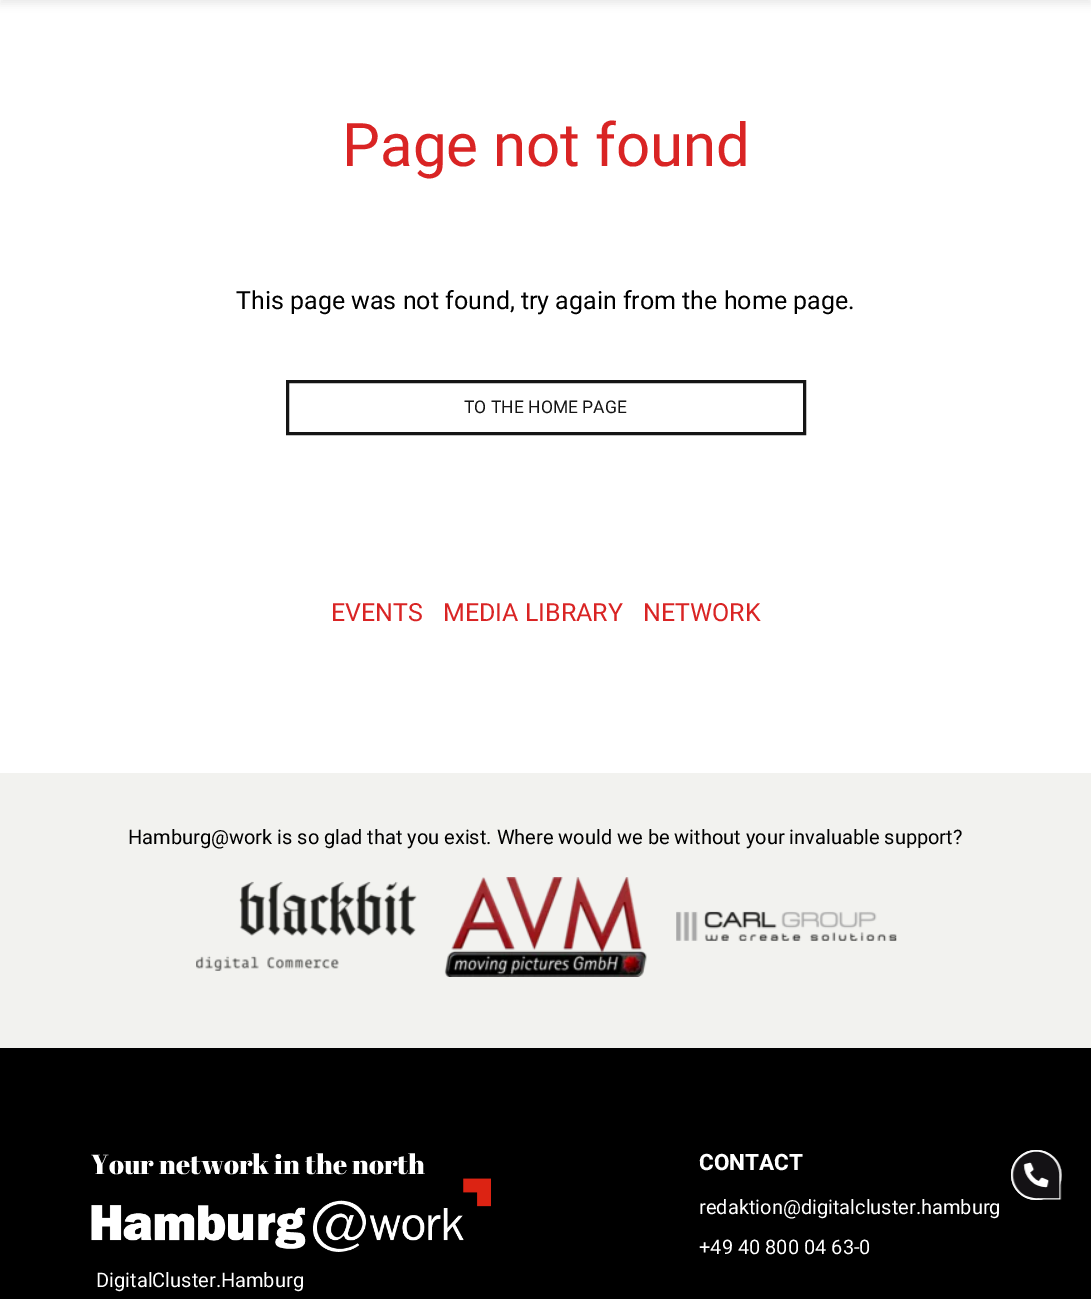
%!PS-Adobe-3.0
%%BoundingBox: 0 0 1091 1299
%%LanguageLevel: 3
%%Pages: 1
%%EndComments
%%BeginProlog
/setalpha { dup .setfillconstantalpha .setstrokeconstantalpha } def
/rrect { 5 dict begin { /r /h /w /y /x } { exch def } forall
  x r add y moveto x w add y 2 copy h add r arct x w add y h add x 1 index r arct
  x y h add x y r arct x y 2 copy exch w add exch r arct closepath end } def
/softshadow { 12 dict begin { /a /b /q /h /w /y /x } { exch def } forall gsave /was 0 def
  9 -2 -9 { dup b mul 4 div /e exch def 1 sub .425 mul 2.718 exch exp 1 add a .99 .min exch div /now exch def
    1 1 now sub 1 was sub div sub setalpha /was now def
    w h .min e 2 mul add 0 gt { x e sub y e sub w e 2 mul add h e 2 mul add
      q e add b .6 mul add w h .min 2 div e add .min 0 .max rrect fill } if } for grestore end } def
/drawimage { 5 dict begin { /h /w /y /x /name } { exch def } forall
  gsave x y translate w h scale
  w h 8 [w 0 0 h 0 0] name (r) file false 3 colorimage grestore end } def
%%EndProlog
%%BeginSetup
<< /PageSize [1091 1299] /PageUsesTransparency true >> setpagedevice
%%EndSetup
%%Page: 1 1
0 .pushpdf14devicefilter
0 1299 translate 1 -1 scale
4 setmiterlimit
1 setgray
0 0 1091 1299 rectfill
0 setgray
0 -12 1091 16 0 4 0.08 softshadow
0.082 setgray
3 setlinewidth
287.5 381.5 517 52 rectstroke
0.949 0.949 0.937 setrgbcolor
0 773 1091 275 rectfill
(images/1.raw) 196 881 221 90 drawimage
(images/2.raw) 444 877 203 100 drawimage
(images/3.raw) 676 911 221 30 drawimage
0 setgray
0 1048 1091 251 rectfill
(images/4.raw) 91 1178 400 74 drawimage
(images/5.raw) 1011 1150 51 50 drawimage
(images/6.raw) 1011 1150 51 50 drawimage
(images/7.raw) 1011 1150 51 50 drawimage
(images/8.raw) 1011 1150 51 50 drawimage
/Heebo-Regular [60 0 0 -60 0 0] selectfont
0.851 0.141 0.141 setrgbcolor
342 166 moveto (Page not found) show
/Heebo-Regular [25 0 0 -25 0 0] selectfont
0 setgray
236 309 moveto (This page was not found, try again from the home page.) show
/Heebo-Regular [17.5 0 0 -17.5 0 0] selectfont
0.082 setgray
464 413 moveto (TO THE HOME PAGE) show
/Heebo-Regular [25 0 0 -25 0 0] selectfont
0.851 0.141 0.141 setrgbcolor
331 621 moveto (EVENTS) show
443 621 moveto (MEDIA LIBRARY) show
643 621 moveto (NETWORK) show
/Heebo-Regular [20 0 0 -20 0 0] selectfont
0 setgray
128 844 moveto (Hamburg@work is so glad that you exist. Where would we be without your invaluable support?) show
/AbrilFatface-Regular [27.5 0 0 -27.5 0 0] selectfont
1 setgray
91 1174 moveto (Your network in the north) show
/Heebo-Regular [20 0 0 -20 0 0] selectfont
96 1287 moveto (DigitalCluster.Hamburg) show
/Heebo-Bold [22.5 0 0 -22.5 0 0] selectfont
699 1170 moveto (CONTACT) show
/Heebo-Regular [20 0 0 -20 0 0] selectfont
699 1214 moveto (redaktion@digitalcluster.hamburg) show
699 1254 moveto (+49 40 800 04 63-0) show
.poppdf14devicefilter showpage
%%EOF
